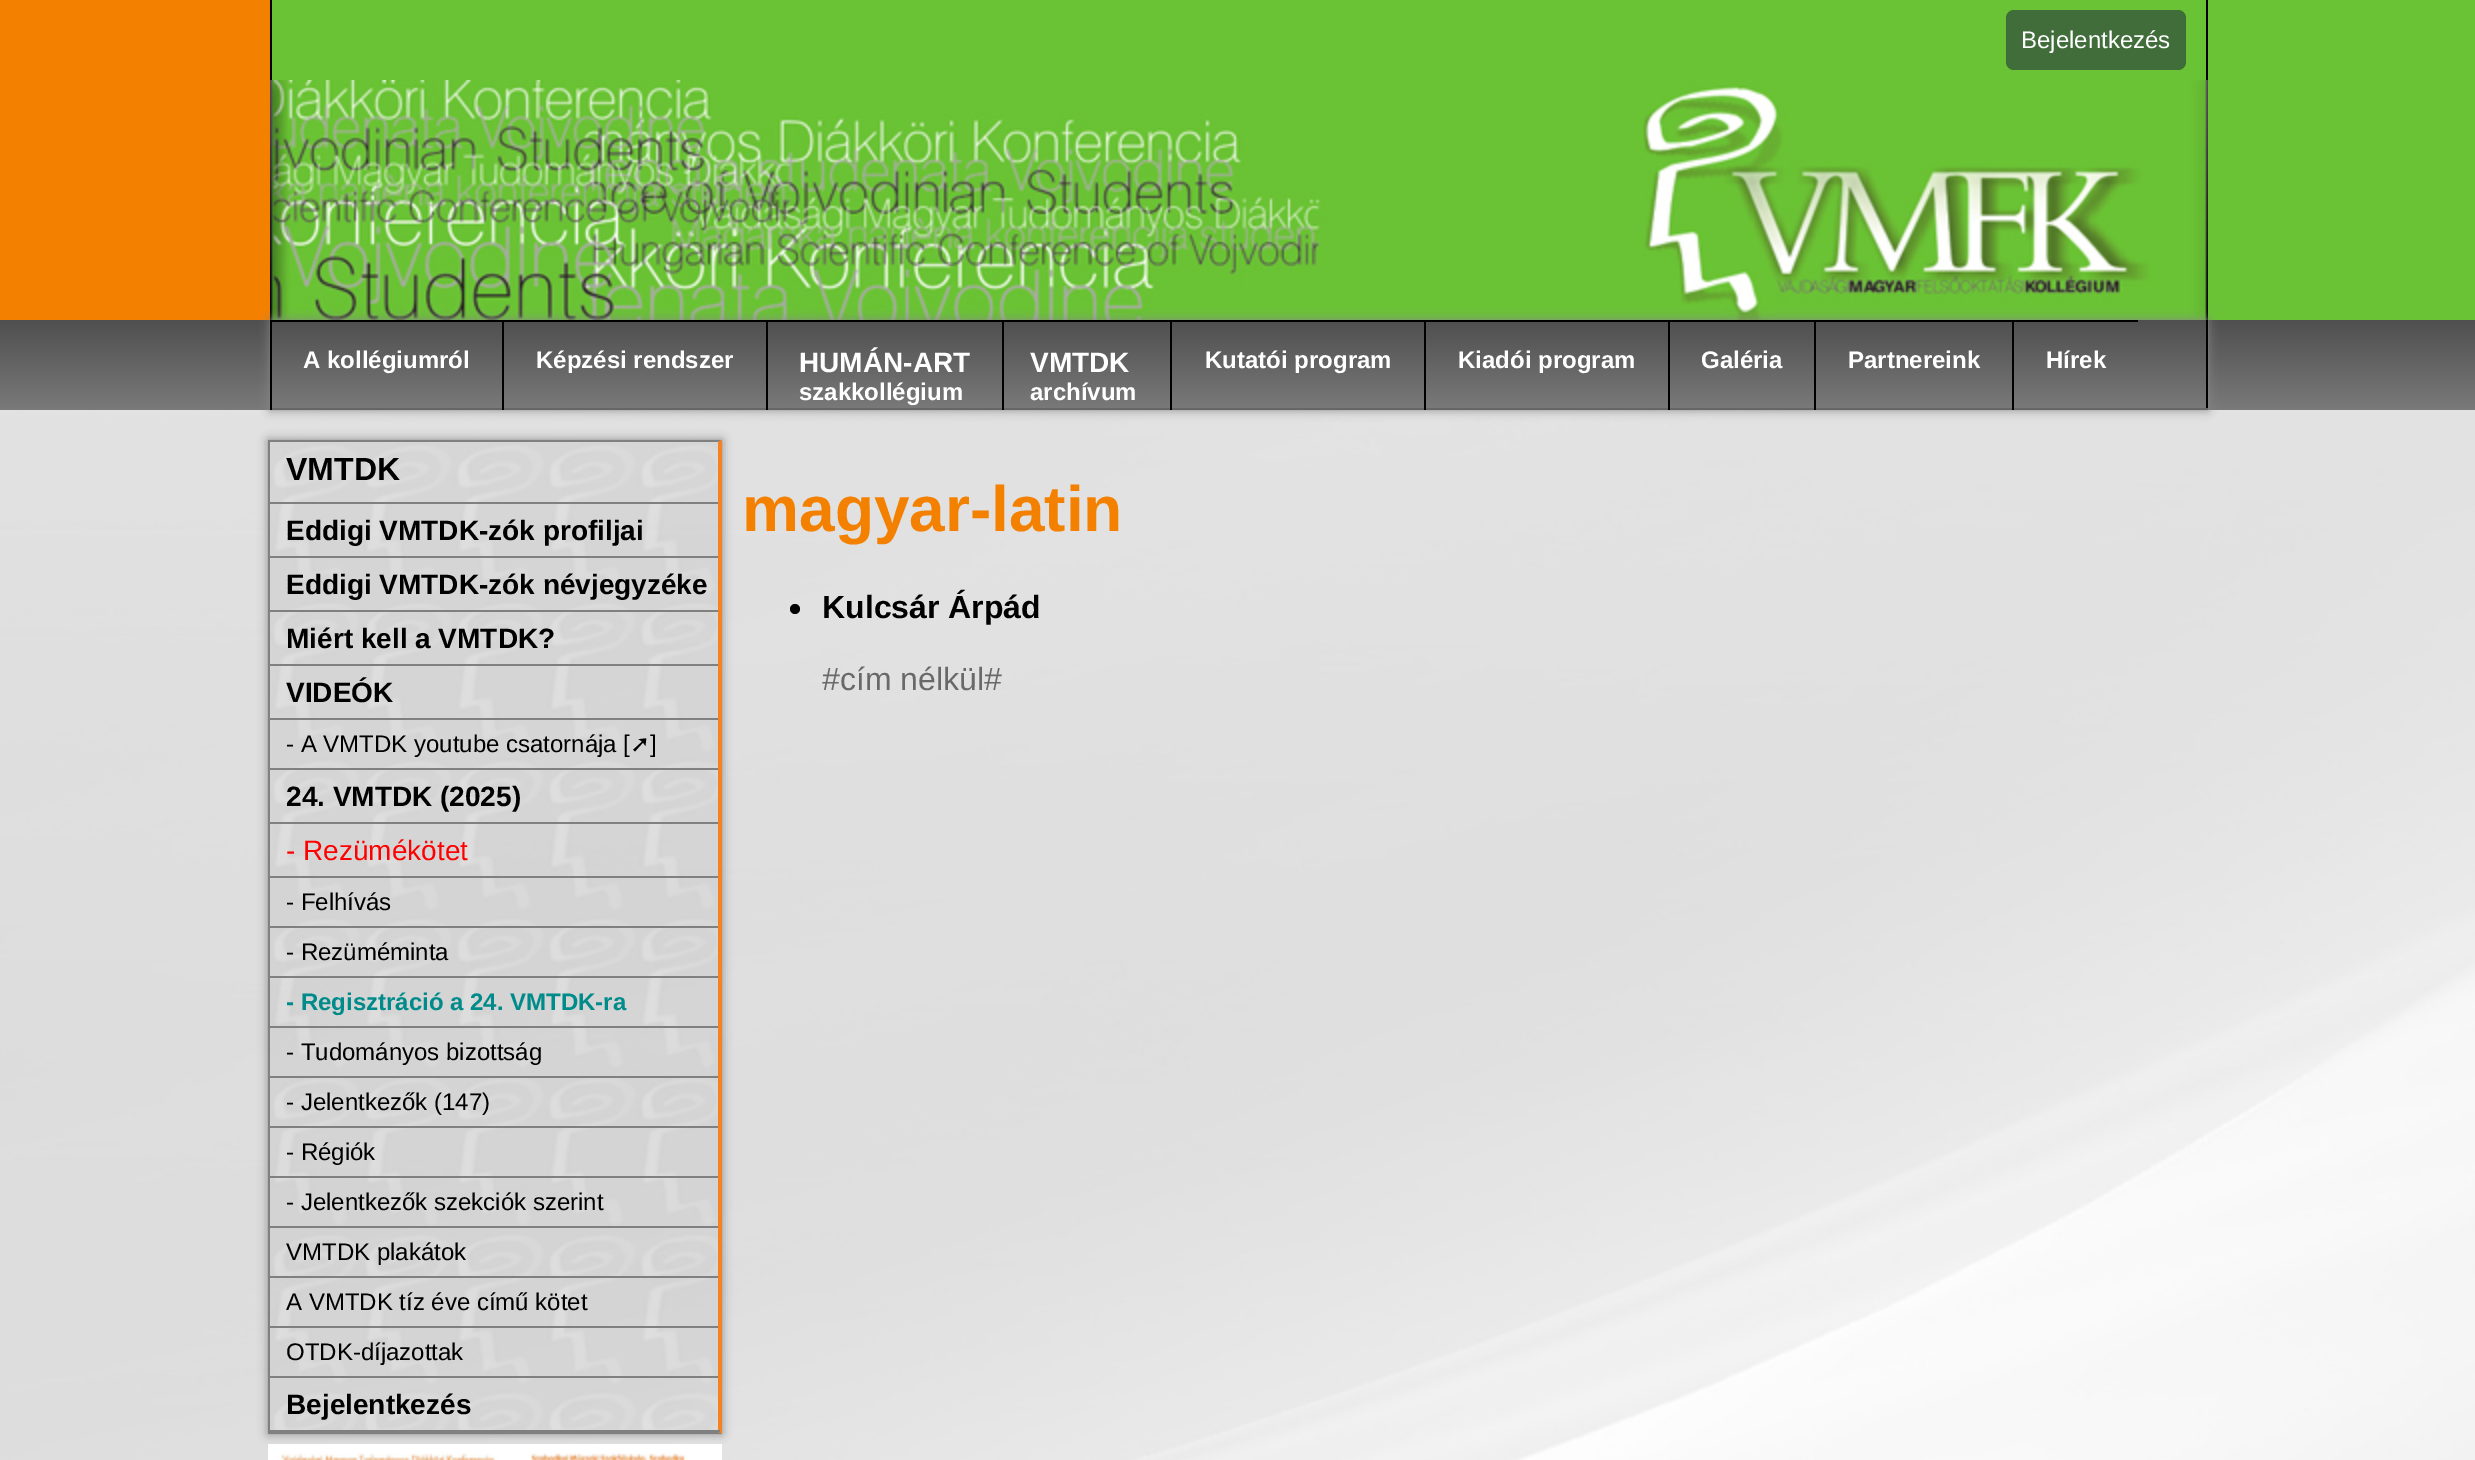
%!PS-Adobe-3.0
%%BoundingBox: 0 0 2475 1460
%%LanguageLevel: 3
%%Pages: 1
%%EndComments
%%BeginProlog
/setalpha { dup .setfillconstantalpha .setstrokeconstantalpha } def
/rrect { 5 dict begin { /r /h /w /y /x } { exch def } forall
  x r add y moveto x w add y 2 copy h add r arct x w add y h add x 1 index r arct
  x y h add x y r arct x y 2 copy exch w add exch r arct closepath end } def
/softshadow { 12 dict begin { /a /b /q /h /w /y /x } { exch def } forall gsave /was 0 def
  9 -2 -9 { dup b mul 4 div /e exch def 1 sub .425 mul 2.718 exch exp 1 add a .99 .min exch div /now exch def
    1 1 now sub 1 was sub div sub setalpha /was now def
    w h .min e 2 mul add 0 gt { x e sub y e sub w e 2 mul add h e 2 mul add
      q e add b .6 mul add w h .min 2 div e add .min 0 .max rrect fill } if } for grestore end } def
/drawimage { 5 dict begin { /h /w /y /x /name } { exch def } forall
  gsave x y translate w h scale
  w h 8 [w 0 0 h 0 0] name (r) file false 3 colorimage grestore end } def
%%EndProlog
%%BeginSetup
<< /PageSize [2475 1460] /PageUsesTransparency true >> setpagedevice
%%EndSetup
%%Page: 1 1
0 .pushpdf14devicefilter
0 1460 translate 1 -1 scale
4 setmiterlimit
1 setgray
0 0 2475 1460 rectfill
(images/1.raw) 0 410 2475 1050 drawimage
0.957 0.502 0 setrgbcolor
0 0 270 80 rectfill
0.416 0.765 0.204 setrgbcolor
272 0 1934 80 rectfill
0 setgray
2206 0 2 80 rectfill
270 0 2 80 rectfill
0.255 0.427 0.231 setrgbcolor
2006 10 180 60 8 rrect fill
0.416 0.765 0.204 setrgbcolor
2208 0 267 80 rectfill
(images/2.raw) 0 80 2475 240 drawimage
(images/3.raw) 270 80 1938 240 drawimage
gsave newpath 0 320 moveto 2475 320 lineto 2475 410 lineto 0 410 lineto closepath clip newpath
<< /ShadingType 2 /ColorSpace /DeviceRGB /Coords [1238 320 1238 410] /Extend [true true] /Function << /FunctionType 2 /Domain [0 1] /C0 [0.31 0.31 0.31] /C1 [0.478 0.478 0.478] /N 1 >> >> shfill grestore
gsave
newpath 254 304 moveto 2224 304 lineto 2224 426 lineto 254 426 lineto closepath 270 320 moveto 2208 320 lineto 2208 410 lineto 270 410 lineto closepath eoclip newpath
0.533 setgray
270 320 1938 90 0 5 1 softshadow
grestore
0 setgray
2206 320 2 90 rectfill
0.4 setgray
270 408 1938 2 rectfill
0 setgray
270 320 2 90 rectfill
272 320 1866 2 rectfill
502 320 2 90 rectfill
766 320 2 90 rectfill
1002 320 2 90 rectfill
1170 320 2 90 rectfill
1424 320 2 90 rectfill
1668 320 2 90 rectfill
1814 320 2 90 rectfill
2012 320 2 90 rectfill
gsave
newpath 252 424 moveto 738 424 lineto 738 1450 lineto 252 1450 lineto closepath 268 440 moveto 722 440 lineto 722 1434 lineto 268 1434 lineto closepath eoclip newpath
0.533 setgray
268 440 454 994 0 5 1 softshadow
grestore
(images/4.raw) 270 440 452 994 drawimage
0.502 setgray
newpath 268 440 moveto 722 440 lineto 718 442 lineto 270 442 lineto closepath fill
0.965 0.506 0.129 setrgbcolor
newpath 722 440 moveto 722 1434 lineto 718 1432 lineto 718 442 lineto closepath fill
0.502 setgray
newpath 722 1434 moveto 268 1434 lineto 270 1432 lineto 718 1432 lineto closepath fill
268 440 2 994 rectfill
270 1430 450 2 rectfill
270 502 448 2 rectfill
270 556 448 2 rectfill
270 610 448 2 rectfill
270 664 448 2 rectfill
270 718 448 2 rectfill
270 768 448 2 rectfill
270 822 448 2 rectfill
270 876 448 2 rectfill
270 926 448 2 rectfill
270 976 448 2 rectfill
270 1026 448 2 rectfill
270 1076 448 2 rectfill
270 1126 448 2 rectfill
270 1176 448 2 rectfill
270 1226 448 2 rectfill
270 1276 448 2 rectfill
270 1326 448 2 rectfill
270 1376 448 2 rectfill
(images/5.raw) 268 1444 454 16 drawimage
0 setgray
newpath 795 609 5 0 360 arc closepath fill
/LiberationSans-Regular [24 0 0 -24 0 0] selectfont
1 setgray
2021 48 moveto (Bejelentkezés) show
/LiberationSans-Bold [24 0 0 -24 0 0] selectfont
303 368 moveto (A kollégiumról) show
536 368 moveto (Képzési rendszer) show
/LiberationSans-Bold [28 0 0 -28 0 0] selectfont
799 372 moveto (HUMÁN-ART) show
/LiberationSans-Bold [24 0 0 -24 0 0] selectfont
799 400 moveto (szakkollégium) show
/LiberationSans-Bold [28 0 0 -28 0 0] selectfont
1030 372 moveto (VMTDK) show
/LiberationSans-Bold [24 0 0 -24 0 0] selectfont
1030 400 moveto (archívum) show
1205 368 moveto (Kutatói program) show
1458 368 moveto (Kiadói program) show
1701 368 moveto (Galéria) show
1848 368 moveto (Partnereink) show
2046 368 moveto (Hírek) show
/LiberationSans-Bold [32 0 0 -32 0 0] selectfont
0 setgray
286 480 moveto (VMTDK) show
/LiberationSans-Bold [28 0 0 -28 0 0] selectfont
286 540 moveto (Eddigi VMTDK-zók profiljai) show
286 594 moveto (Eddigi VMTDK-zók névjegyzéke) show
286 648 moveto (Miért kell a VMTDK?) show
286 702 moveto (VIDEÓK) show
/LiberationSans-Regular [24 0 0 -24 0 0] selectfont
286 752 moveto (- A VMTDK youtube csatornája [) show
/DejaVuSans-Regular [24 0 0 -24 0 0] selectfont
630 752 moveto (➚) show
/LiberationSans-Regular [24 0 0 -24 0 0] selectfont
650 752 moveto (]) show
/LiberationSans-Bold [28 0 0 -28 0 0] selectfont
286 806 moveto (24. VMTDK \(2025\)) show
/LiberationSans-Regular [28 0 0 -28 0 0] selectfont
1 0 0 setrgbcolor
286 860 moveto (- Rezümékötet) show
/LiberationSans-Regular [24 0 0 -24 0 0] selectfont
0 setgray
286 910 moveto (- Felhívás) show
286 960 moveto (- Rezüméminta) show
/LiberationSans-Bold [24 0 0 -24 0 0] selectfont
0 0.545 0.545 setrgbcolor
286 1010 moveto (- Regisztráció a 24. VMTDK-ra) show
/LiberationSans-Regular [24 0 0 -24 0 0] selectfont
0 setgray
286 1060 moveto (- Tudományos bizottság) show
286 1110 moveto (- Jelentkezők \(147\)) show
286 1160 moveto (- Régiók) show
286 1210 moveto (- Jelentkezők szekciók szerint) show
286 1260 moveto (VMTDK plakátok) show
286 1310 moveto (A VMTDK tíz éve című kötet) show
286 1360 moveto (OTDK-díjazottak) show
/LiberationSans-Bold [28 0 0 -28 0 0] selectfont
286 1414 moveto (Bejelentkezés) show
/LiberationSans-Bold [64 0 0 -64 0 0] selectfont
0.957 0.502 0 setrgbcolor
742 531 moveto (magyar-latin) show
/LiberationSans-Bold [32 0 0 -32 0 0] selectfont
0 setgray
822 618 moveto (Kulcsár Árpád) show
/LiberationSans-Regular [32 0 0 -32 0 0] selectfont
0.412 setgray
822 690 moveto (#cím nélkül#) show
.poppdf14devicefilter showpage
%%EOF
